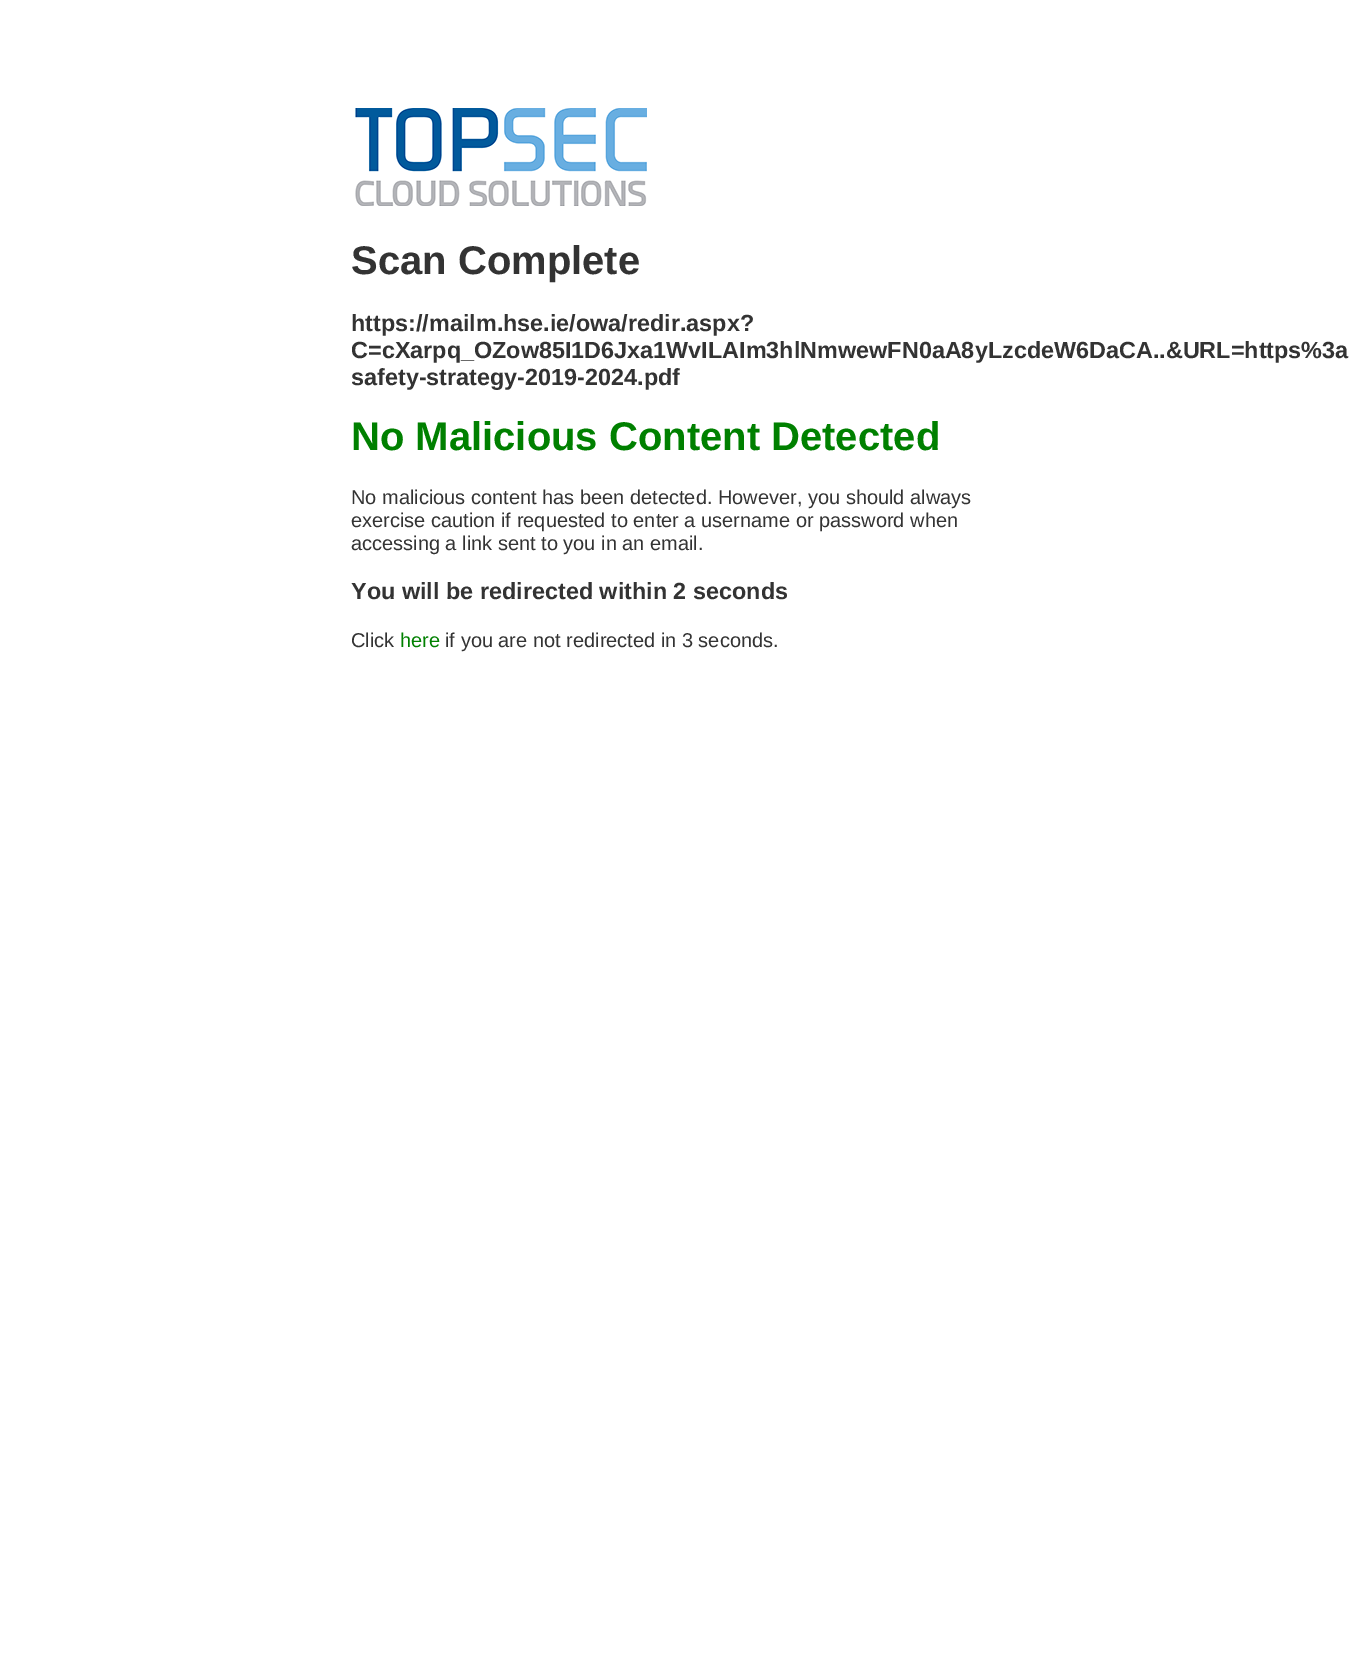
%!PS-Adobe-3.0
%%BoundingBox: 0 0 1352 1676
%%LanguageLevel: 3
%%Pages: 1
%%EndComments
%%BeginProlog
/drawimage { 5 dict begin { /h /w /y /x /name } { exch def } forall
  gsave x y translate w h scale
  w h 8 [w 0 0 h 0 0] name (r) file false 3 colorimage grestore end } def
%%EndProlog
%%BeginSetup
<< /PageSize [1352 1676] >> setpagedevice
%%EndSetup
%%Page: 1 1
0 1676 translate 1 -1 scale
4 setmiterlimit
1 setgray
0 0 1352 1676 rectfill
(images/1.raw) 355 108 292 98 drawimage
/LiberationSans-Bold [40 0 0 -40 0 0] selectfont
0.2 setgray
351 274 moveto (Scan Complete) show
/LiberationSans-Bold [23.4 0 0 -23.4 0 0] selectfont
351 331 moveto (https://mailm.hse.ie/owa/redir.aspx?) show
351 358 moveto (C=cXarpq_OZow85I1D6Jxa1WvILAIm3hlNmwewFN0aA8yLzcdeW6DaCA..&URL=https%3a) show
351 385 moveto (safety-strategy-2019-2024.pdf) show
/LiberationSans-Bold [40 0 0 -40 0 0] selectfont
0 0.502 0 setrgbcolor
351 450 moveto (No Malicious Content Detected) show
/LiberationSans-Regular [20 0 0 -20 0 0] selectfont
0.2 setgray
351 504 moveto (No malicious content has been detected. However, you should always) show
351 527 moveto (exercise caution if requested to enter a username or password when) show
351 550 moveto (accessing a link sent to you in an email.) show
/LiberationSans-Bold [23.4 0 0 -23.4 0 0] selectfont
351 599 moveto (You will be redirected within 2 seconds) show
/LiberationSans-Regular [20 0 0 -20 0 0] selectfont
351 647 moveto (Click) show
0 0.502 0 setrgbcolor
400 647 moveto (here) show
0.2 setgray
445 647 moveto (if you are not redirected in 3 seconds.) show
showpage
%%EOF
